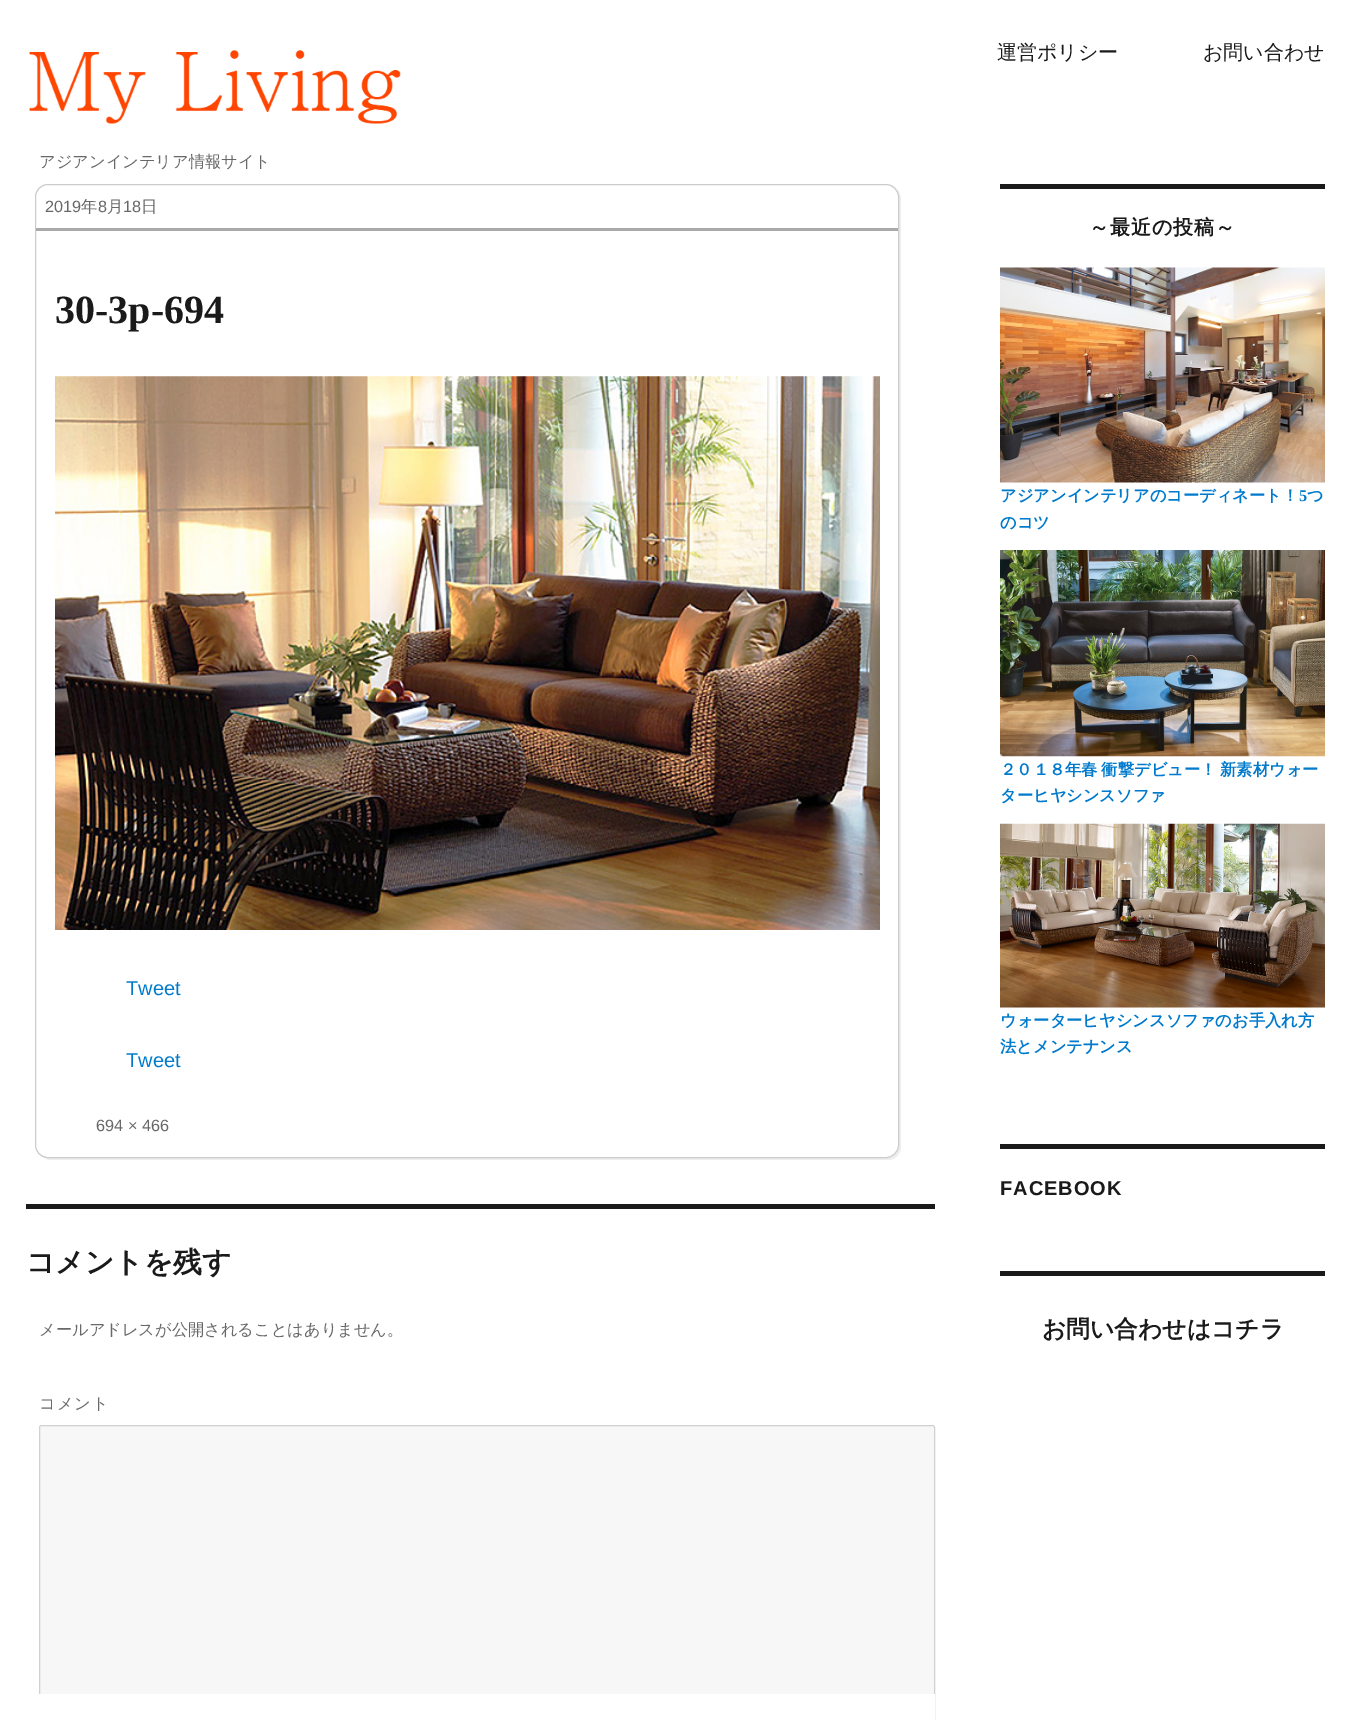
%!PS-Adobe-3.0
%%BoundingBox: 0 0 1351 1720
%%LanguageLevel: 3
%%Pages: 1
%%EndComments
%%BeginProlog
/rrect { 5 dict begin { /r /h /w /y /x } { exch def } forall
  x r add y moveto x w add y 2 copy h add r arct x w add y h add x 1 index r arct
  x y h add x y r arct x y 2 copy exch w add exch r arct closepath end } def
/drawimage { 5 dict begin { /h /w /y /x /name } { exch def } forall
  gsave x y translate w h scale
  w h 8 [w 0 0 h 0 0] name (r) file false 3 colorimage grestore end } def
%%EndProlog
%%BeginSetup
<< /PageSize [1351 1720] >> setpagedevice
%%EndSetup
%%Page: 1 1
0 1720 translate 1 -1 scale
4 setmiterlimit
1 setgray
0 0 1351 1720 rectfill
(images/1.raw) 29 50 372 74 drawimage
0.933 setgray
newpath 42 1156 moveto 44 1158 47 1160 51 1160 curveto 888 1160 lineto 895 1160 901 1154 901 1147 curveto 901 199 lineto 901 195 899 192 897 189 curveto 898 191 899 194 899 196 curveto 899 1145 lineto 899 1152 893 1158 886 1158 curveto 48 1158 lineto 45 1158 43 1157 42 1156 curveto closepath fill
0.8 setgray
35.5 184.5 863 973 12.5 rrect stroke
0.667 setgray
36 228 862 3 rectfill
(images/2.raw) 55 376 825 554 drawimage
0.102 setgray
26 1204 909 5 rectfill
0.969 setgray
39.5 1425.5 895 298 2 rrect gsave fill grestore
0.82 setgray
stroke
0.102 setgray
1000 184 325 5 rectfill
(images/3.raw) 1000 267 325 216 drawimage
(images/4.raw) 1000 550 325 207 drawimage
(images/5.raw) 1000 823 325 185 drawimage
1000 1144 325 5 rectfill
1000 1271 325 5 rectfill
1 setgray
39 1694 896 26 rectfill
/WenQuanYiZenHei-Medium [20 0 0 -20 0 0] selectfont
0.102 setgray
997 59 moveto (運営ポリシー) show
1203 59 moveto (お問い合わせ) show
/WenQuanYiZenHei-Medium [16.25 0 0 -16.25 0 0] selectfont
0.408 setgray
39 167 moveto (アジアンインテリア情報サイト) show
/LiberationSans-Regular [16.25 0 0 -16.25 0 0] selectfont
45 212 moveto (2019) show
/WenQuanYiZenHei-Medium [16.25 0 0 -16.25 0 0] selectfont
81 212 moveto (年) show
/LiberationSans-Regular [16.25 0 0 -16.25 0 0] selectfont
98 212 moveto (8) show
/WenQuanYiZenHei-Medium [16.25 0 0 -16.25 0 0] selectfont
107 212 moveto (月) show
/LiberationSans-Regular [16.25 0 0 -16.25 0 0] selectfont
123 212 moveto (18) show
/WenQuanYiZenHei-Medium [16.25 0 0 -16.25 0 0] selectfont
141 212 moveto (日) show
/LiberationSans-Regular [16.25 0 0 -16.25 0 0] selectfont
96 1131 moveto (694 × 466) show
/LiberationSerif-Bold [40 0 0 -40 0 0] selectfont
0.102 setgray
55 323 moveto (30-3p-694) show
/LiberationSans-Regular [20 0 0 -20 0 0] selectfont
0 0.478 0.8 setrgbcolor
126 995 moveto (Tweet) show
126 1067 moveto (Tweet) show
/WenQuanYiZenHei-Bold [28.75 0 0 -28.75 0 0] selectfont
0.102 setgray
26 1272 moveto (コメントを残す) show
/WenQuanYiZenHei-Medium [16.25 0 0 -16.25 0 0] selectfont
0.408 setgray
39 1335 moveto (メールアドレスが公開されることはありません。) show
39 1409 moveto 1 0 (コメント) ashow
/WenQuanYiZenHei-Bold [20 0 0 -20 0 0] selectfont
0.102 setgray
1089 234 moveto 1 0 (～最近の投稿～) ashow
/WenQuanYiZenHei-Bold [16.25 0 0 -16.25 0 0] selectfont
0 0.478 0.8 setrgbcolor
1000 501 moveto (アジアンインテリアのコーディネート！) show
/LiberationSerif-Bold [16.25 0 0 -16.25 0 0] selectfont
1299 501 moveto (5) show
/WenQuanYiZenHei-Bold [16.25 0 0 -16.25 0 0] selectfont
1307 501 moveto (つ) show
1000 528 moveto (のコツ) show
1000 775 moveto -1 0 32 (２０１８年春 衝撃デビュー！ 新素材ウォー) widthshow
1000 801 moveto (ターヒヤシンスソファ) show
1000 1026 moveto (ウォーターヒヤシンスソファのお手入れ方) show
1000 1052 moveto (法とメンテナンス) show
/LiberationSans-Bold [20 0 0 -20 0 0] selectfont
0.102 setgray
1000 1195 moveto 1 0 (FACEBOOK) ashow
/WenQuanYiZenHei-Bold [23.75 0 0 -23.75 0 0] selectfont
1042 1337 moveto (お問い合わせはコチラ) show
showpage
%%EOF
